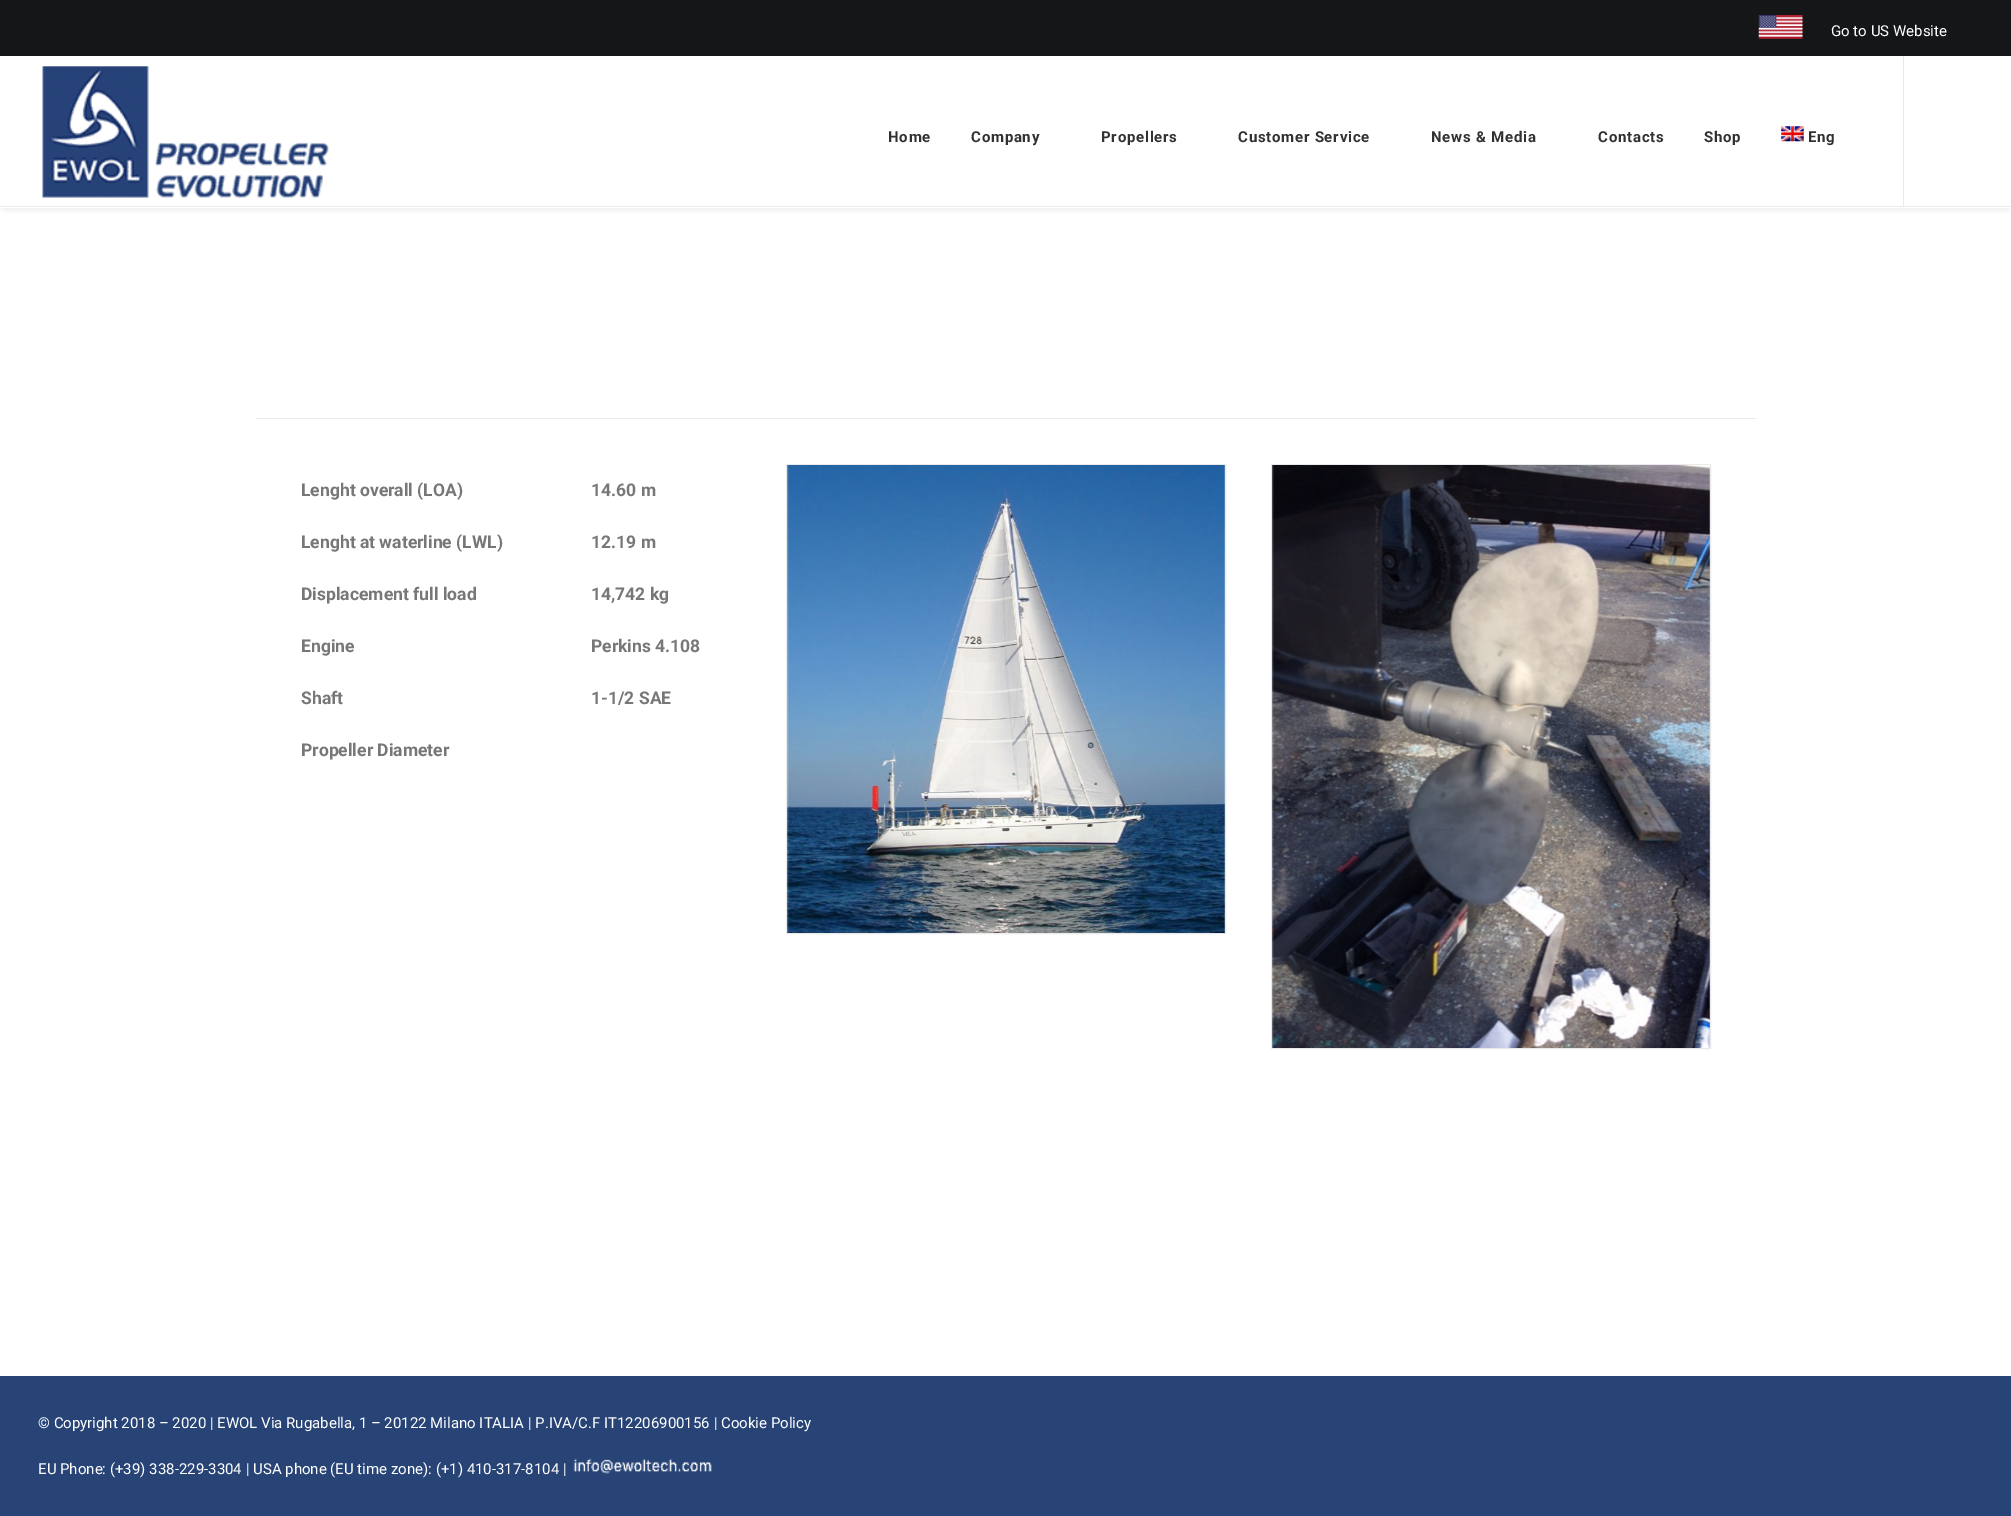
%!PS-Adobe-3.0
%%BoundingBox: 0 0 2011 1516
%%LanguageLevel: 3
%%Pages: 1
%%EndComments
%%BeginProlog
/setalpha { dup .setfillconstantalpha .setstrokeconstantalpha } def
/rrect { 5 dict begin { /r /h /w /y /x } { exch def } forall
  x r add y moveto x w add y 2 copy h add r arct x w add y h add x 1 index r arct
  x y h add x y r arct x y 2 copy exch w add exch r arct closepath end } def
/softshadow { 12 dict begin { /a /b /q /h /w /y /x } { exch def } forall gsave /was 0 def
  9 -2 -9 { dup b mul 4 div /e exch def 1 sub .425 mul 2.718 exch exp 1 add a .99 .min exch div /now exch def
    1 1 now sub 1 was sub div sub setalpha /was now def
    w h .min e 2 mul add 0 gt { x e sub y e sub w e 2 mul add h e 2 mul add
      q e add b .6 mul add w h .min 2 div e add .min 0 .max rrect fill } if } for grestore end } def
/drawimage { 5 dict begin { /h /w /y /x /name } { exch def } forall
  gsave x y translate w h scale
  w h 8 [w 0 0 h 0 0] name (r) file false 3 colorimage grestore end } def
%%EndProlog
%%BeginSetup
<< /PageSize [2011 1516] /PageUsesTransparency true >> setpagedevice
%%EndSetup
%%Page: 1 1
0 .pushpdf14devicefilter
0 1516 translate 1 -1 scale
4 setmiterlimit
1 setgray
0 0 2011 1516 rectfill
0 setgray
6 74 2000 126 0 6 0.6 softshadow
0.078 0.086 0.094 setrgbcolor
0 0 2011 56 rectfill
(images/1.raw) 1758 15 45 24 drawimage
1 setgray
0 61 2011 147 rectfill
0.918 setgray
0 206 2011 1 rectfill
(images/2.raw) 42 66 287 132 drawimage
(images/3.raw) 1781 126 23 16 drawimage
1903 56 1 150 rectfill
256 418 1500 1 rectfill
786.5 464.5 439 469 rectstroke
(images/4.raw) 787 465 438 468 drawimage
1271.5 464.5 439 584 rectstroke
(images/5.raw) 1272 465 438 583 drawimage
0.157 0.267 0.467 setrgbcolor
0 1376 2011 140 rectfill
(images/6.raw) 573 1458 139 16 drawimage
/Roboto-Regular [15 0 0 -15 0 0] selectfont
1 setgray
1831 36 moveto (Go to US Website) show
/Roboto-Bold [15 0 0 -15 0 0] selectfont
0.188 0.192 0.2 setrgbcolor
888 142 moveto 0.75 0 (Home) ashow
971 142 moveto 0.75 0 (Company) ashow
1101 142 moveto 0.75 0 (Propellers) ashow
1238 142 moveto 0.75 0 (Customer Service) ashow
1431 142 moveto 0.75 0 (News & Media) ashow
1598 142 moveto 0.75 0 (Contacts) ashow
1704 142 moveto 0.75 0 (Shop) ashow
1808 142 moveto 0.75 0 (Eng) ashow
/Roboto-Bold [17.5 0 0 -17.5 0 0] selectfont
0.467 setgray
301 496 moveto (Lenght overall \(LOA\)) show
591 496 moveto (14.60 m) show
301 548 moveto (Lenght at waterline \(LWL\)) show
591 548 moveto (12.19 m) show
301 600 moveto (Displacement full load) show
591 600 moveto (14,742 kg) show
301 652 moveto (Engine) show
591 652 moveto (Perkins 4.108) show
301 704 moveto (Shaft) show
591 704 moveto (1-1/2 SAE) show
301 756 moveto (Propeller Diameter) show
/Roboto-Regular [15 0 0 -15 0 0] selectfont
1 setgray
38 1428 moveto (© Copyright 2018 – 2020 | EWOL Via Rugabella, 1 – 20122 Milano ITALIA | P.IVA/C.F IT12206900156 | Cookie Policy) show
38 1474 moveto (EU Phone: \(+39\) 338-229-3304 | USA phone \(EU time zone\): \(+1\) 410-317-8104 |) show
.poppdf14devicefilter showpage
%%EOF
